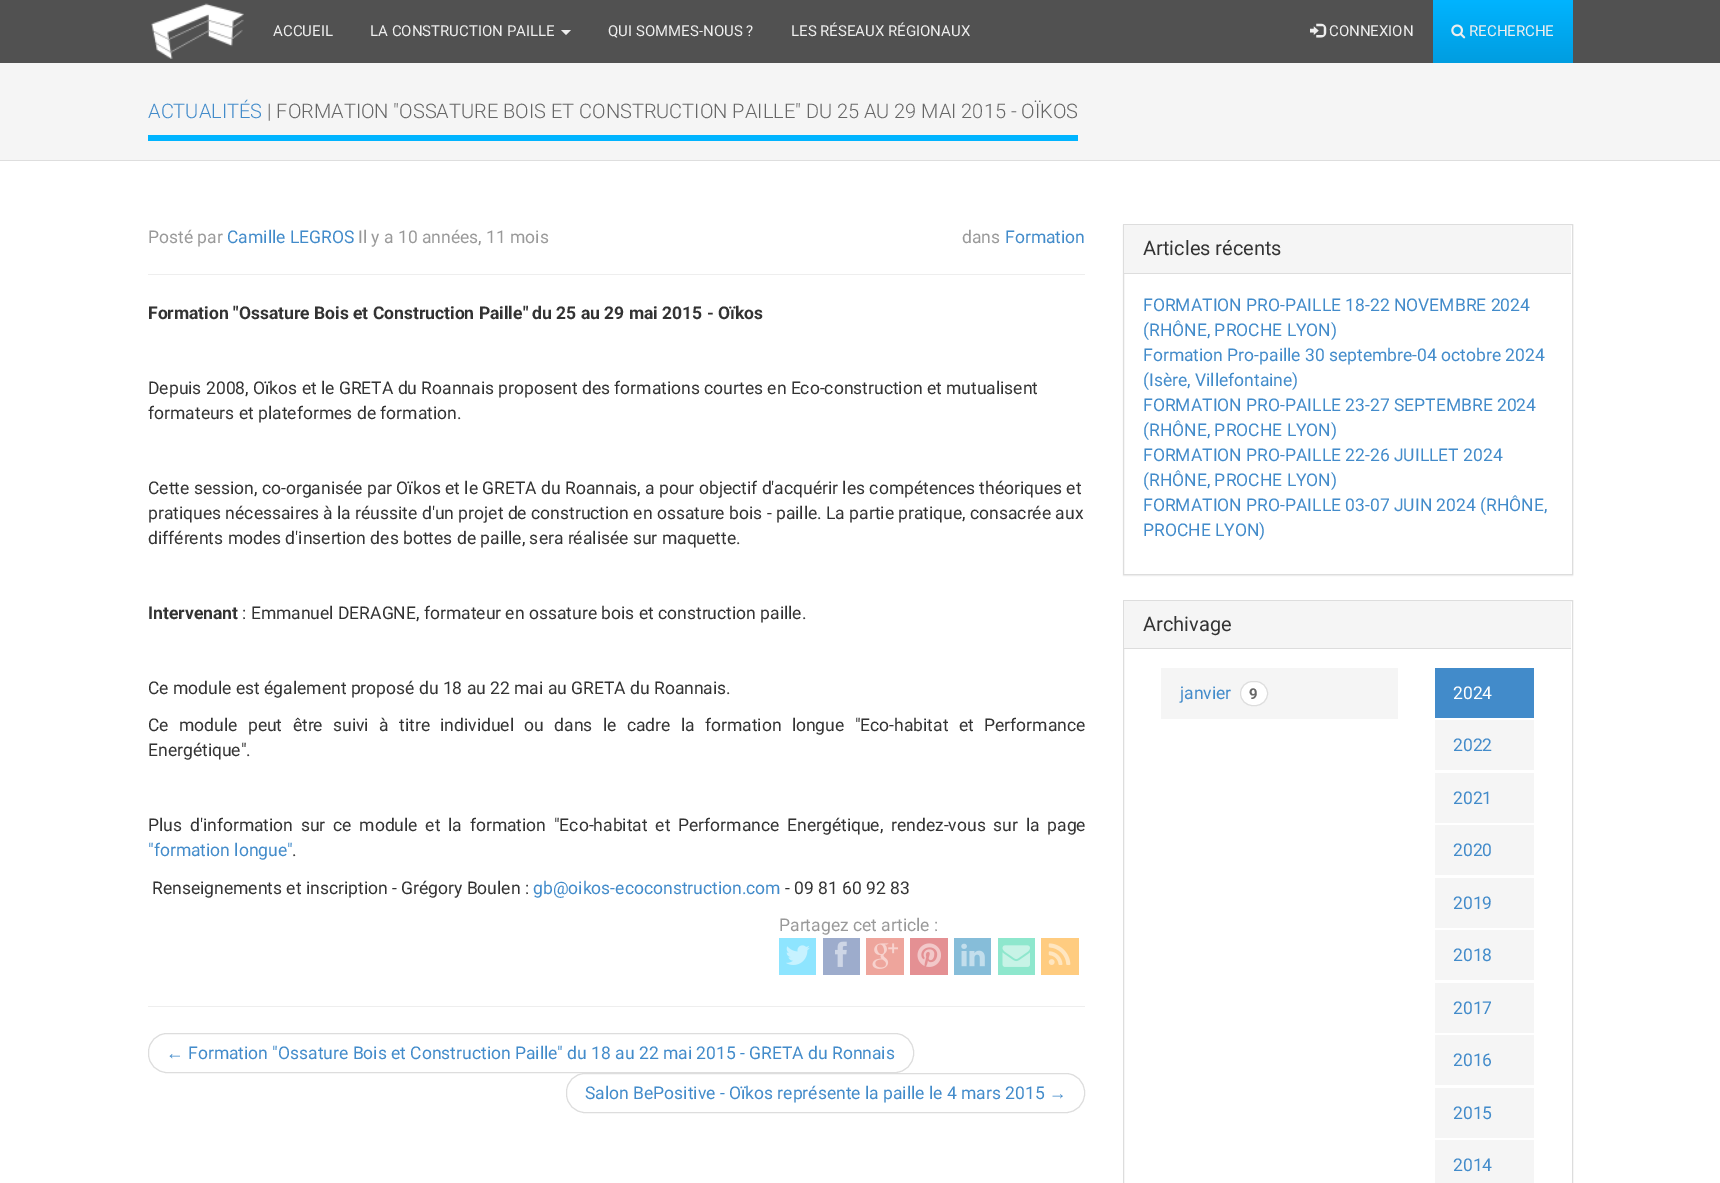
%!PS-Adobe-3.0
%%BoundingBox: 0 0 1720 1183
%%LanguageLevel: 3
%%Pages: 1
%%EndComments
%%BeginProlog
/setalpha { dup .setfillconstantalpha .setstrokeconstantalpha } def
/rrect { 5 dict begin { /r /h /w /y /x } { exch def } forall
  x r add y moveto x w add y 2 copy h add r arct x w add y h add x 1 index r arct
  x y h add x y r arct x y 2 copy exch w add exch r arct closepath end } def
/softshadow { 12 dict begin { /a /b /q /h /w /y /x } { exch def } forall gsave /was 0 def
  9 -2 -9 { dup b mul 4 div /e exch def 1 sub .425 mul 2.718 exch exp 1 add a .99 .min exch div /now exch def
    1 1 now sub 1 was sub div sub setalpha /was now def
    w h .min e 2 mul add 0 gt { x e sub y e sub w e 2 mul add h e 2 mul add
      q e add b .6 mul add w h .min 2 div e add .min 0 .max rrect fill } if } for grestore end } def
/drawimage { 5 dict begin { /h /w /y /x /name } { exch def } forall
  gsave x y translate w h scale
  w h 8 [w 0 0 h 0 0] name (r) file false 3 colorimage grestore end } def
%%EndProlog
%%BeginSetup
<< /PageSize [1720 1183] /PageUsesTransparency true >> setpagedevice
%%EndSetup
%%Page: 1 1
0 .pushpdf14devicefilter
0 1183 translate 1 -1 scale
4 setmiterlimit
1 setgray
0 0 1720 1183 rectfill
0.318 setgray
0 0 1720 63 rectfill
(images/1.raw) 151 3 93 56 drawimage
0.933 setgray
newpath 561 30 moveto 571 30 lineto 566 35 lineto closepath fill
(images/2.raw) 1310 23 17 15 drawimage
gsave newpath 1433 0 moveto 1573 0 lineto 1573 63 lineto 1433 63 lineto closepath clip newpath
<< /ShadingType 2 /ColorSpace /DeviceRGB /Coords [1503 0 1503 63] /Extend [true true] /Function << /FunctionType 2 /Domain [0 1] /C0 [0 0.706 1] /C1 [0 0.616 0.878] /N 1 >> >> shfill grestore
(images/3.raw) 1451 24 15 15 drawimage
0.961 setgray
0 63 1720 97 rectfill
0.871 setgray
0 160 1720 1 rectfill
0 0.706 1 setrgbcolor
148 135 930 6 rectfill
0.933 setgray
148 274 937 1 rectfill
0.557 0.898 1 setrgbcolor
779 938 37 37 rectfill
(images/4.raw) 786 945 24 20 drawimage
0.616 0.675 0.8 setrgbcolor
823 938 37 37 rectfill
(images/5.raw) 835 941 12 26 drawimage
0.933 0.647 0.612 setrgbcolor
866 938 38 37 rectfill
(images/6.raw) 872 943 26 26 drawimage
0.894 0.565 0.576 setrgbcolor
910 938 38 37 rectfill
(images/7.raw) 917 943 24 24 drawimage
0.525 0.741 0.851 setrgbcolor
954 938 37 37 rectfill
(images/8.raw) 961 943 24 24 drawimage
0.557 0.906 0.804 setrgbcolor
998 938 37 37 rectfill
(images/9.raw) 1002 945 28 22 drawimage
1 0.8 0.502 setrgbcolor
1041 938 38 37 rectfill
(images/10.raw) 1048 943 23 22 drawimage
0.933 setgray
148 1006 937 1 rectfill
0.867 setgray
148.5 1033.5 765 39 18.5 rrect stroke
566.5 1073.5 518 39 18.5 rrect stroke
0 setgray
1123 225 450 351 0 0.5 0.05 softshadow
1 setgray
newpath 1123.5 224.5 moveto 1572.5 224.5 lineto 1572.5 574.5 lineto 1123.5 574.5 lineto closepath gsave fill grestore
0.867 setgray
stroke
0.961 setgray
1124 225 447 48 rectfill
0.867 setgray
1124 273 447 1 rectfill
1123.5 600.5 449 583 rectstroke
0.961 setgray
1124 601 447 47 rectfill
0.867 setgray
1124 648 447 1 rectfill
0.961 setgray
1161 668 237 51 rectfill
1 setgray
1240.5 681.5 27 24 12 rrect gsave fill grestore
0.867 setgray
stroke
0.259 0.545 0.792 setrgbcolor
1435 668 99 50 rectfill
0.961 setgray
1435 720 99 50 rectfill
1435 773 99 50 rectfill
1435 825 99 50 rectfill
1435 878 99 50 rectfill
1435 930 99 50 rectfill
1435 983 99 50 rectfill
1435 1035 99 50 rectfill
1435 1088 99 50 rectfill
1435 1140 99 43 rectfill
/Roboto-Regular [15 0 0 -15 0 0] selectfont
0.933 setgray
273 36 moveto (ACCUEIL) show
370 36 moveto (LA CONSTRUCTION PAILLE) show
608 36 moveto (QUI SOMMES-NOUS ?) show
791 36 moveto (LES RÉSEAUX RÉGIONAUX) show
1329 36 moveto (CONNEXION) show
1469 36 moveto (RECHERCHE) show
/Roboto-Light [20 0 0 -20 0 0] selectfont
0.259 0.545 0.792 setrgbcolor
148 118 moveto (ACTUALITÉS) show
0.4 setgray
267 118 moveto (| FORMATION "OSSATURE BOIS ET CONSTRUCTION PAILLE" DU 25 AU 29 MAI 2015 - OÏKOS) show
/Roboto-Regular [17.5 0 0 -17.5 0 0] selectfont
0.6 setgray
148 243 moveto (Posté par) show
0.259 0.545 0.792 setrgbcolor
227 243 moveto (Camille LEGROS) show
0.6 setgray
358 243 moveto (Il y a 10 années, 11 mois) show
962 243 moveto (dans) show
0.259 0.545 0.792 setrgbcolor
1005 243 moveto (Formation) show
/Roboto-Bold [17.5 0 0 -17.5 0 0] selectfont
0.2 setgray
148 319 moveto (Formation "Ossature Bois et Construction Paille" du 25 au 29 mai 2015 - Oïkos) show
/Roboto-Regular [17.5 0 0 -17.5 0 0] selectfont
148 394 moveto (Depuis 2008, Oïkos et le GRETA du Roannais proposent des formations courtes en Eco-construction et mutualisent) show
148 419 moveto (formateurs et plateformes de formation.) show
148 494 moveto (Cette session, co-organisée par Oïkos et le GRETA du Roannais, a pour objectif d'acquérir les compétences théoriques et) show
148 519 moveto (pratiques nécessaires à la réussite d'un projet de construction en ossature bois - paille. La partie pratique, consacrée aux) show
148 544 moveto (différents modes d'insertion des bottes de paille, sera réalisée sur maquette.) show
/Roboto-Bold [17.5 0 0 -17.5 0 0] selectfont
148 619 moveto (Intervenant) show
/Roboto-Regular [17.5 0 0 -17.5 0 0] selectfont
242 619 moveto (: Emmanuel DERAGNE, formateur en ossature bois et construction paille.) show
148 694 moveto (Ce module est également proposé du 18 au 22 mai au GRETA du Roannais.) show
148 731 moveto 6 0 32 (Ce module peut être suivi à titre individuel ou dans le cadre la formation longue "Eco-habitat et Performance) widthshow
148 756 moveto (Energétique".) show
148 831 moveto 3.4 0 32 (Plus d'information sur ce module et la formation "Eco-habitat et Performance Energétique, rendez-vous sur la page) widthshow
0.259 0.545 0.792 setrgbcolor
148 856 moveto ("formation longue") show
0.2 setgray
292 856 moveto (.) show
152 894 moveto (Renseignements et inscription - Grégory Boulen :) show
0.259 0.545 0.792 setrgbcolor
533 894 moveto (gb@oikos-ecoconstruction.com) show
0.2 setgray
785 894 moveto (- 09 81 60 92 83) show
0.6 setgray
779 931 moveto (Partagez cet article :) show
/LiberationSans-Regular [17.5 0 0 -17.5 0 0] selectfont
0.259 0.545 0.792 setrgbcolor
166 1059 moveto (←) show
/Roboto-Regular [17.5 0 0 -17.5 0 0] selectfont
188 1059 moveto (Formation "Ossature Bois et Construction Paille" du 18 au 22 mai 2015 - GRETA du Ronnais) show
585 1099 moveto (Salon BePositive - Oïkos représente la paille le 4 mars 2015) show
/LiberationSans-Regular [17.5 0 0 -17.5 0 0] selectfont
1049 1099 moveto (→) show
/Roboto-Regular [20 0 0 -20 0 0] selectfont
0.2 setgray
1143 255 moveto (Articles récents) show
/Roboto-Regular [17.5 0 0 -17.5 0 0] selectfont
0.259 0.545 0.792 setrgbcolor
1143 311 moveto (FORMATION PRO-PAILLE 18-22 NOVEMBRE 2024) show
1143 336 moveto (\(RHÔNE, PROCHE LYON\)) show
1143 361 moveto (Formation Pro-paille 30 septembre-04 octobre 2024) show
1143 386 moveto (\(Isère, Villefontaine\)) show
1143 411 moveto (FORMATION PRO-PAILLE 23-27 SEPTEMBRE 2024) show
1143 436 moveto (\(RHÔNE, PROCHE LYON\)) show
1143 461 moveto (FORMATION PRO-PAILLE 22-26 JUILLET 2024) show
1143 486 moveto (\(RHÔNE, PROCHE LYON\)) show
1143 511 moveto (FORMATION PRO-PAILLE 03-07 JUIN 2024 \(RHÔNE,) show
1143 536 moveto (PROCHE LYON\)) show
/Roboto-Regular [20 0 0 -20 0 0] selectfont
0.2 setgray
1143 631 moveto (Archivage) show
/Roboto-Regular [17.5 0 0 -17.5 0 0] selectfont
0.259 0.545 0.792 setrgbcolor
1180 699 moveto (janvier) show
/Roboto-Bold [15 0 0 -15 0 0] selectfont
0.4 setgray
1249 699 moveto (9) show
/Roboto-Regular [17.5 0 0 -17.5 0 0] selectfont
1 setgray
1453 699 moveto (2024) show
0.259 0.545 0.792 setrgbcolor
1453 751 moveto (2022) show
1453 804 moveto (2021) show
1453 856 moveto (2020) show
1453 909 moveto (2019) show
1453 961 moveto (2018) show
1453 1014 moveto (2017) show
1453 1066 moveto (2016) show
1453 1119 moveto (2015) show
1453 1171 moveto (2014) show
.poppdf14devicefilter showpage
%%EOF
